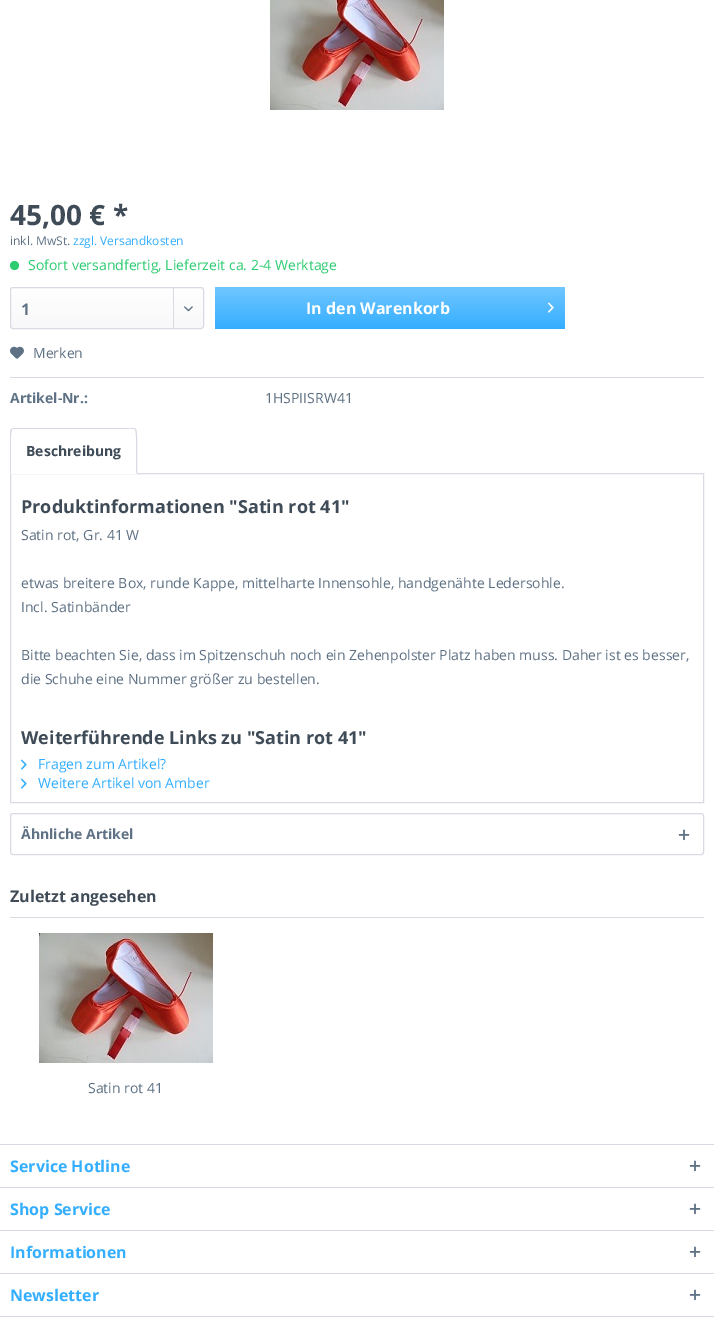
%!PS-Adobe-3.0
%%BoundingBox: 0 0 714 1321
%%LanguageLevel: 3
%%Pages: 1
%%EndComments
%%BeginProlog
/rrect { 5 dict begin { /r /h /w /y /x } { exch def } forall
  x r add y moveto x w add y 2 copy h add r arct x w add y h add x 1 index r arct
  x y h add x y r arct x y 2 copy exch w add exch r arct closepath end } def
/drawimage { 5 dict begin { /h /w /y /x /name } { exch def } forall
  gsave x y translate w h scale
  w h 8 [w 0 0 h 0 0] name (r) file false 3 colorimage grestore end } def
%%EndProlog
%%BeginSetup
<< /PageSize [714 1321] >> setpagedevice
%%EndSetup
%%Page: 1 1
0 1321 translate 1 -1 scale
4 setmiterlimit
1 setgray
0 0 714 1321 rectfill
(images/1.raw) 270 0 174 110 drawimage
0.18 0.8 0.443 setrgbcolor
newpath 14.5 265.5 4.5 0 360 arc closepath fill
gsave 11 288 192 40 2 rrect clip newpath
<< /ShadingType 2 /ColorSpace /DeviceRGB /Coords [107 288 107 328] /Extend [true true] /Function << /FunctionType 2 /Domain [0 1] /C0 [1 1 1] /C1 [0.973 0.973 0.98] /N 1 >> >> shfill grestore
0.855 0.855 0.898 setrgbcolor
10.5 287.5 193 41 2.5 rrect stroke
173 288 1 40 rectfill
(images/2.raw) 184 306 9 6 drawimage
gsave 215 287 350 42 3 rrect clip newpath
<< /ShadingType 2 /ColorSpace /DeviceRGB /Coords [390 287 390 329] /Extend [true true] /Function << /FunctionType 2 /Domain [0 1] /C0 [0.443 0.776 1] /C1 [0.204 0.682 1] /N 1 >> >> shfill grestore
(images/3.raw) 548 302 6 11 drawimage
10 377 694 1 rectfill
(images/4.raw) 10 346 14 13 drawimage
10.5 473.5 693 329 rectstroke
1 setgray
newpath 13 428 moveto 134 428 lineto 135.5 428 137 429.5 137 431 curveto 137 474 lineto 10 474 lineto 10 431 lineto 10 429.5 11.5 428 13 428 curveto closepath fill
0.855 0.855 0.898 setrgbcolor
newpath 13 428 moveto 11 429 lineto 12 430 lineto 13 429 lineto 134 429 lineto 135 430 lineto 136 429 lineto 134 428 lineto closepath fill
newpath 137 474 moveto 137 469 138 431 136 429 curveto 135 430 lineto 137 431 136 468 136 473 curveto closepath fill
1 setgray
newpath 137 474 moveto 136 473 lineto 11 473 lineto 10 474 lineto closepath fill
0.855 0.855 0.898 setrgbcolor
newpath 10 474 moveto 11 473 lineto 11 468 10 431 12 430 curveto 11 429 lineto 10 431 lineto closepath fill
(images/5.raw) 21 759 6 11 drawimage
(images/5.raw) 21 778 6 11 drawimage
10.5 813.5 693 41 2.5 rrect stroke
(images/6.raw) 678 829 12 12 drawimage
10 917 694 1 rectfill
(images/7.raw) 39 933 174 130 drawimage
0 1144 714 1 rectfill
(images/6.raw) 689 1160 12 12 drawimage
0 1187 714 1 rectfill
(images/6.raw) 689 1203 12 12 drawimage
0 1230 714 1 rectfill
(images/6.raw) 689 1246 12 12 drawimage
0 1273 714 1 rectfill
0 1316 714 1 rectfill
(images/6.raw) 689 1289 12 12 drawimage
/OpenSans-Bold [28 0 0 -28 0 0] selectfont
0.247 0.298 0.345 setrgbcolor
10 225 moveto (45,00 € *) show
/OpenSans-Regular [12 0 0 -12 0 0] selectfont
0.373 0.447 0.522 setrgbcolor
10 245 moveto (inkl. MwSt.) show
0.204 0.682 1 setrgbcolor
73 245 moveto (zzgl. Versandkosten) show
/OpenSans-Regular [14 0 0 -14 0 0] selectfont
0.18 0.8 0.443 setrgbcolor
28 270 moveto (Sofort versandfertig, Lieferzeit ca. 2-4 Werktage) show
/OpenSans-Bold [16 0 0 -16 0 0] selectfont
0.373 0.447 0.522 setrgbcolor
21 315 moveto (1) show
1 setgray
306 314 moveto (In den Warenkorb) show
/OpenSans-Regular [14 0 0 -14 0 0] selectfont
0.373 0.447 0.522 setrgbcolor
33 358 moveto (Merken) show
/OpenSans-Bold [14 0 0 -14 0 0] selectfont
10 403 moveto (Artikel-Nr.:) show
/OpenSans-Regular [14 0 0 -14 0 0] selectfont
265 403 moveto (1HSPIISRW41) show
/OpenSans-Bold [14 0 0 -14 0 0] selectfont
0.247 0.298 0.345 setrgbcolor
26 456 moveto (Beschreibung) show
/OpenSans-Bold [18 0 0 -18 0 0] selectfont
21 513 moveto (Produktinformationen "Satin rot 41") show
/OpenSans-Regular [14 0 0 -14 0 0] selectfont
0.373 0.447 0.522 setrgbcolor
21 540 moveto (Satin rot, Gr. 41 W) show
21 588 moveto (etwas breitere Box, runde Kappe, mittelharte Innensohle, handgenähte Ledersohle.) show
21 612 moveto (Incl. Satinbänder) show
21 660 moveto (Bitte beachten Sie, dass im Spitzenschuh noch ein Zehenpolster Platz haben muss. Daher ist es besser,) show
21 684 moveto (die Schuhe eine Nummer größer zu bestellen.) show
/OpenSans-Bold [18 0 0 -18 0 0] selectfont
0.247 0.298 0.345 setrgbcolor
21 744 moveto (Weiterführende Links zu "Satin rot 41") show
/OpenSans-Regular [14 0 0 -14 0 0] selectfont
0.204 0.682 1 setrgbcolor
38 769 moveto (Fragen zum Artikel?) show
38 788 moveto (Weitere Artikel von Amber) show
/OpenSans-Bold [14 0 0 -14 0 0] selectfont
0.373 0.447 0.522 setrgbcolor
21 839 moveto (Ähnliche Artikel) show
/OpenSans-Bold [16 0 0 -16 0 0] selectfont
0.247 0.298 0.345 setrgbcolor
10 902 moveto (Zuletzt angesehen) show
/OpenSans-Regular [14 0 0 -14 0 0] selectfont
0.373 0.447 0.522 setrgbcolor
88 1093 moveto (Satin rot 41) show
/OpenSans-Bold [16 0 0 -16 0 0] selectfont
0.204 0.682 1 setrgbcolor
10 1172 moveto (Service Hotline) show
10 1215 moveto (Shop Service) show
10 1258 moveto (Informationen) show
10 1301 moveto (Newsletter) show
showpage
%%EOF
